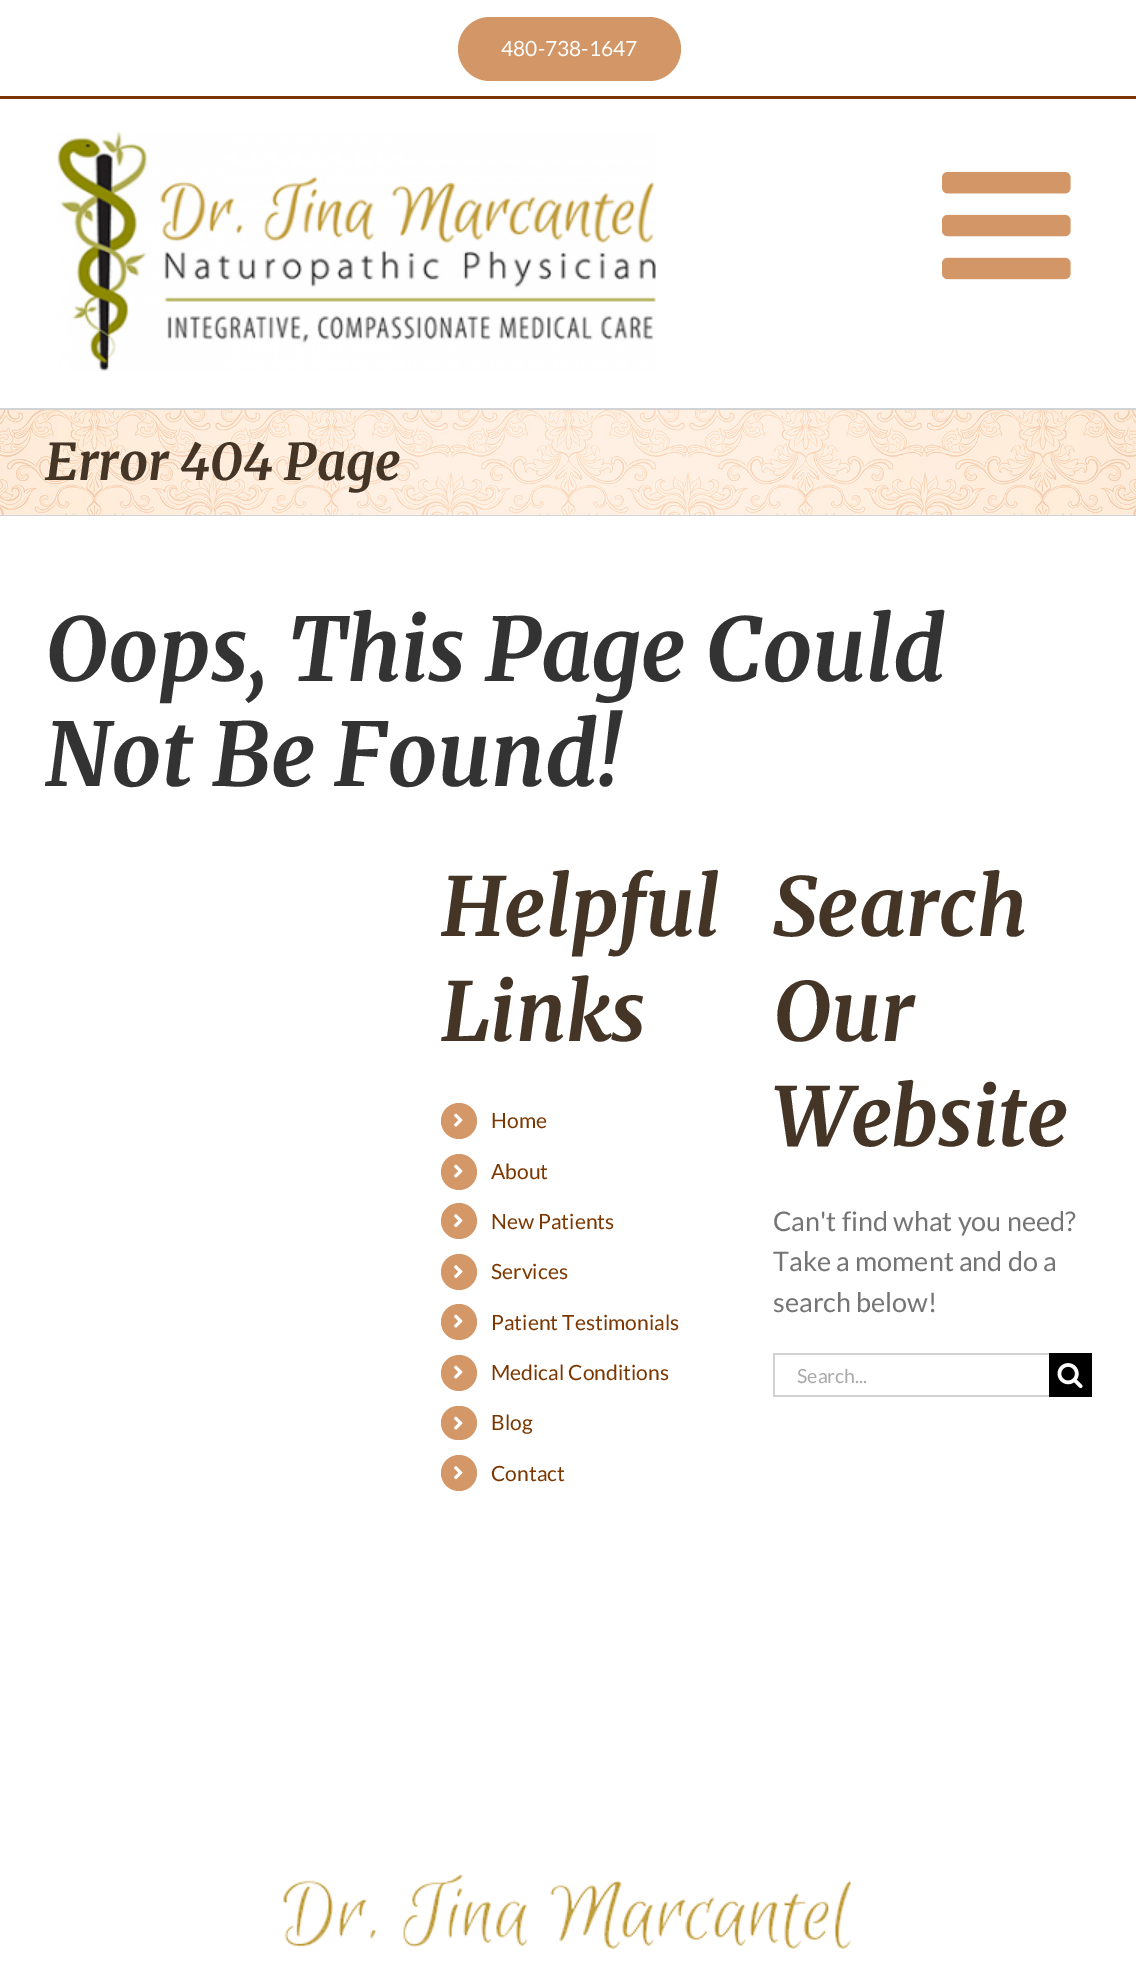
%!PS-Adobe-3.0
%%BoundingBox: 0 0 1136 1973
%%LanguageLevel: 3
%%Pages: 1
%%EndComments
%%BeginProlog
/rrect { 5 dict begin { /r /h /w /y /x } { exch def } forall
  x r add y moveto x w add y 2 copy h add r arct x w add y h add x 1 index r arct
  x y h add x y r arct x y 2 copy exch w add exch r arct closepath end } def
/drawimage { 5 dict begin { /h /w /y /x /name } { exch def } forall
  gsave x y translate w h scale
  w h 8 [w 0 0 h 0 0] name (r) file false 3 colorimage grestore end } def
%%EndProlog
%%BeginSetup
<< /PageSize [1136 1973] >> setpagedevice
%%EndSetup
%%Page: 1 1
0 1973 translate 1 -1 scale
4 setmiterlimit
1 setgray
0 0 1136 1973 rectfill
0.486 0.216 0 setrgbcolor
0 96 1136 3 rectfill
0.827 0.592 0.404 setrgbcolor
458 17 223 64 32 rrect fill
(images/1.raw) 57 131 599 240 drawimage
(images/2.raw) 942 171 129 109 drawimage
(images/3.raw) 0 410 1136 105 drawimage
0.824 0.827 0.831 setrgbcolor
0 408 1136 2 rectfill
0 515 1136 1 rectfill
0.831 0.592 0.408 setrgbcolor
newpath 459 1121 18 0 360 arc closepath fill
(images/4.raw) 454 1113 9 14 drawimage
newpath 459 1172 18 0 360 arc closepath fill
(images/4.raw) 454 1164 9 14 drawimage
newpath 459 1221 18 0 360 arc closepath fill
(images/5.raw) 454 1214 9 14 drawimage
newpath 459 1272 18 0 360 arc closepath fill
(images/5.raw) 454 1265 9 14 drawimage
newpath 459 1322 18 0 360 arc closepath fill
(images/4.raw) 454 1314 9 14 drawimage
newpath 459 1373 18 0 360 arc closepath fill
(images/4.raw) 454 1365 9 14 drawimage
441 1406 36 34 17 rrect fill
(images/4.raw) 454 1416 9 14 drawimage
newpath 459 1473 18 0 360 arc closepath fill
(images/5.raw) 454 1466 9 14 drawimage
0.824 setgray
773 1353 276 2 rectfill
773 1395 276 2 rectfill
773 1353 2 44 rectfill
0 setgray
1049 1353 43 44 rectfill
(images/6.raw) 1057 1363 26 26 drawimage
(images/7.raw) 283 1874 569 75 drawimage
/Lato-Regular [21 0 0 -21 0 0] selectfont
1 setgray
501 56 moveto (480-738-1647) show
/Merriweather-LightItalic [50.5 0 0 -50.5 0 0] selectfont
0.267 0.208 0.153 setrgbcolor
45 480 moveto (Error 404 Page) show
/Merriweather-LightItalic [87.5 0 0 -87.5 0 0] selectfont
0.2 setgray
45 681 moveto (Oops, This Page Could) show
45 786 moveto (Not Be Found!) show
/Merriweather-LightItalic [81 0 0 -81 0 0] selectfont
0.267 0.208 0.153 setrgbcolor
441 936 moveto (Helpful) show
441 1041 moveto (Links) show
/Lato-Regular [21 0 0 -21 0 0] selectfont
0.486 0.216 0 setrgbcolor
491 1128 moveto (Home) show
491 1179 moveto (About) show
491 1229 moveto (New Patients) show
491 1279 moveto (Services) show
491 1330 moveto (Patient Testimonials) show
491 1380 moveto (Medical Conditions) show
491 1430 moveto (Blog) show
491 1481 moveto (Contact) show
/Merriweather-LightItalic [81 0 0 -81 0 0] selectfont
0.267 0.208 0.153 setrgbcolor
773 936 moveto (Search) show
773 1041 moveto (Our) show
773 1146 moveto (Website) show
/Lato-Regular [27 0 0 -27 0 0] selectfont
0.455 setgray
773 1231 moveto (Can't find what you need?) show
773 1271 moveto (Take a moment and do a) show
773 1312 moveto (search below!) show
/Lato-Regular [19.5 0 0 -19.5 0 0] selectfont
0.667 0.663 0.663 setrgbcolor
797 1383 moveto (Search...) show
showpage
%%EOF
